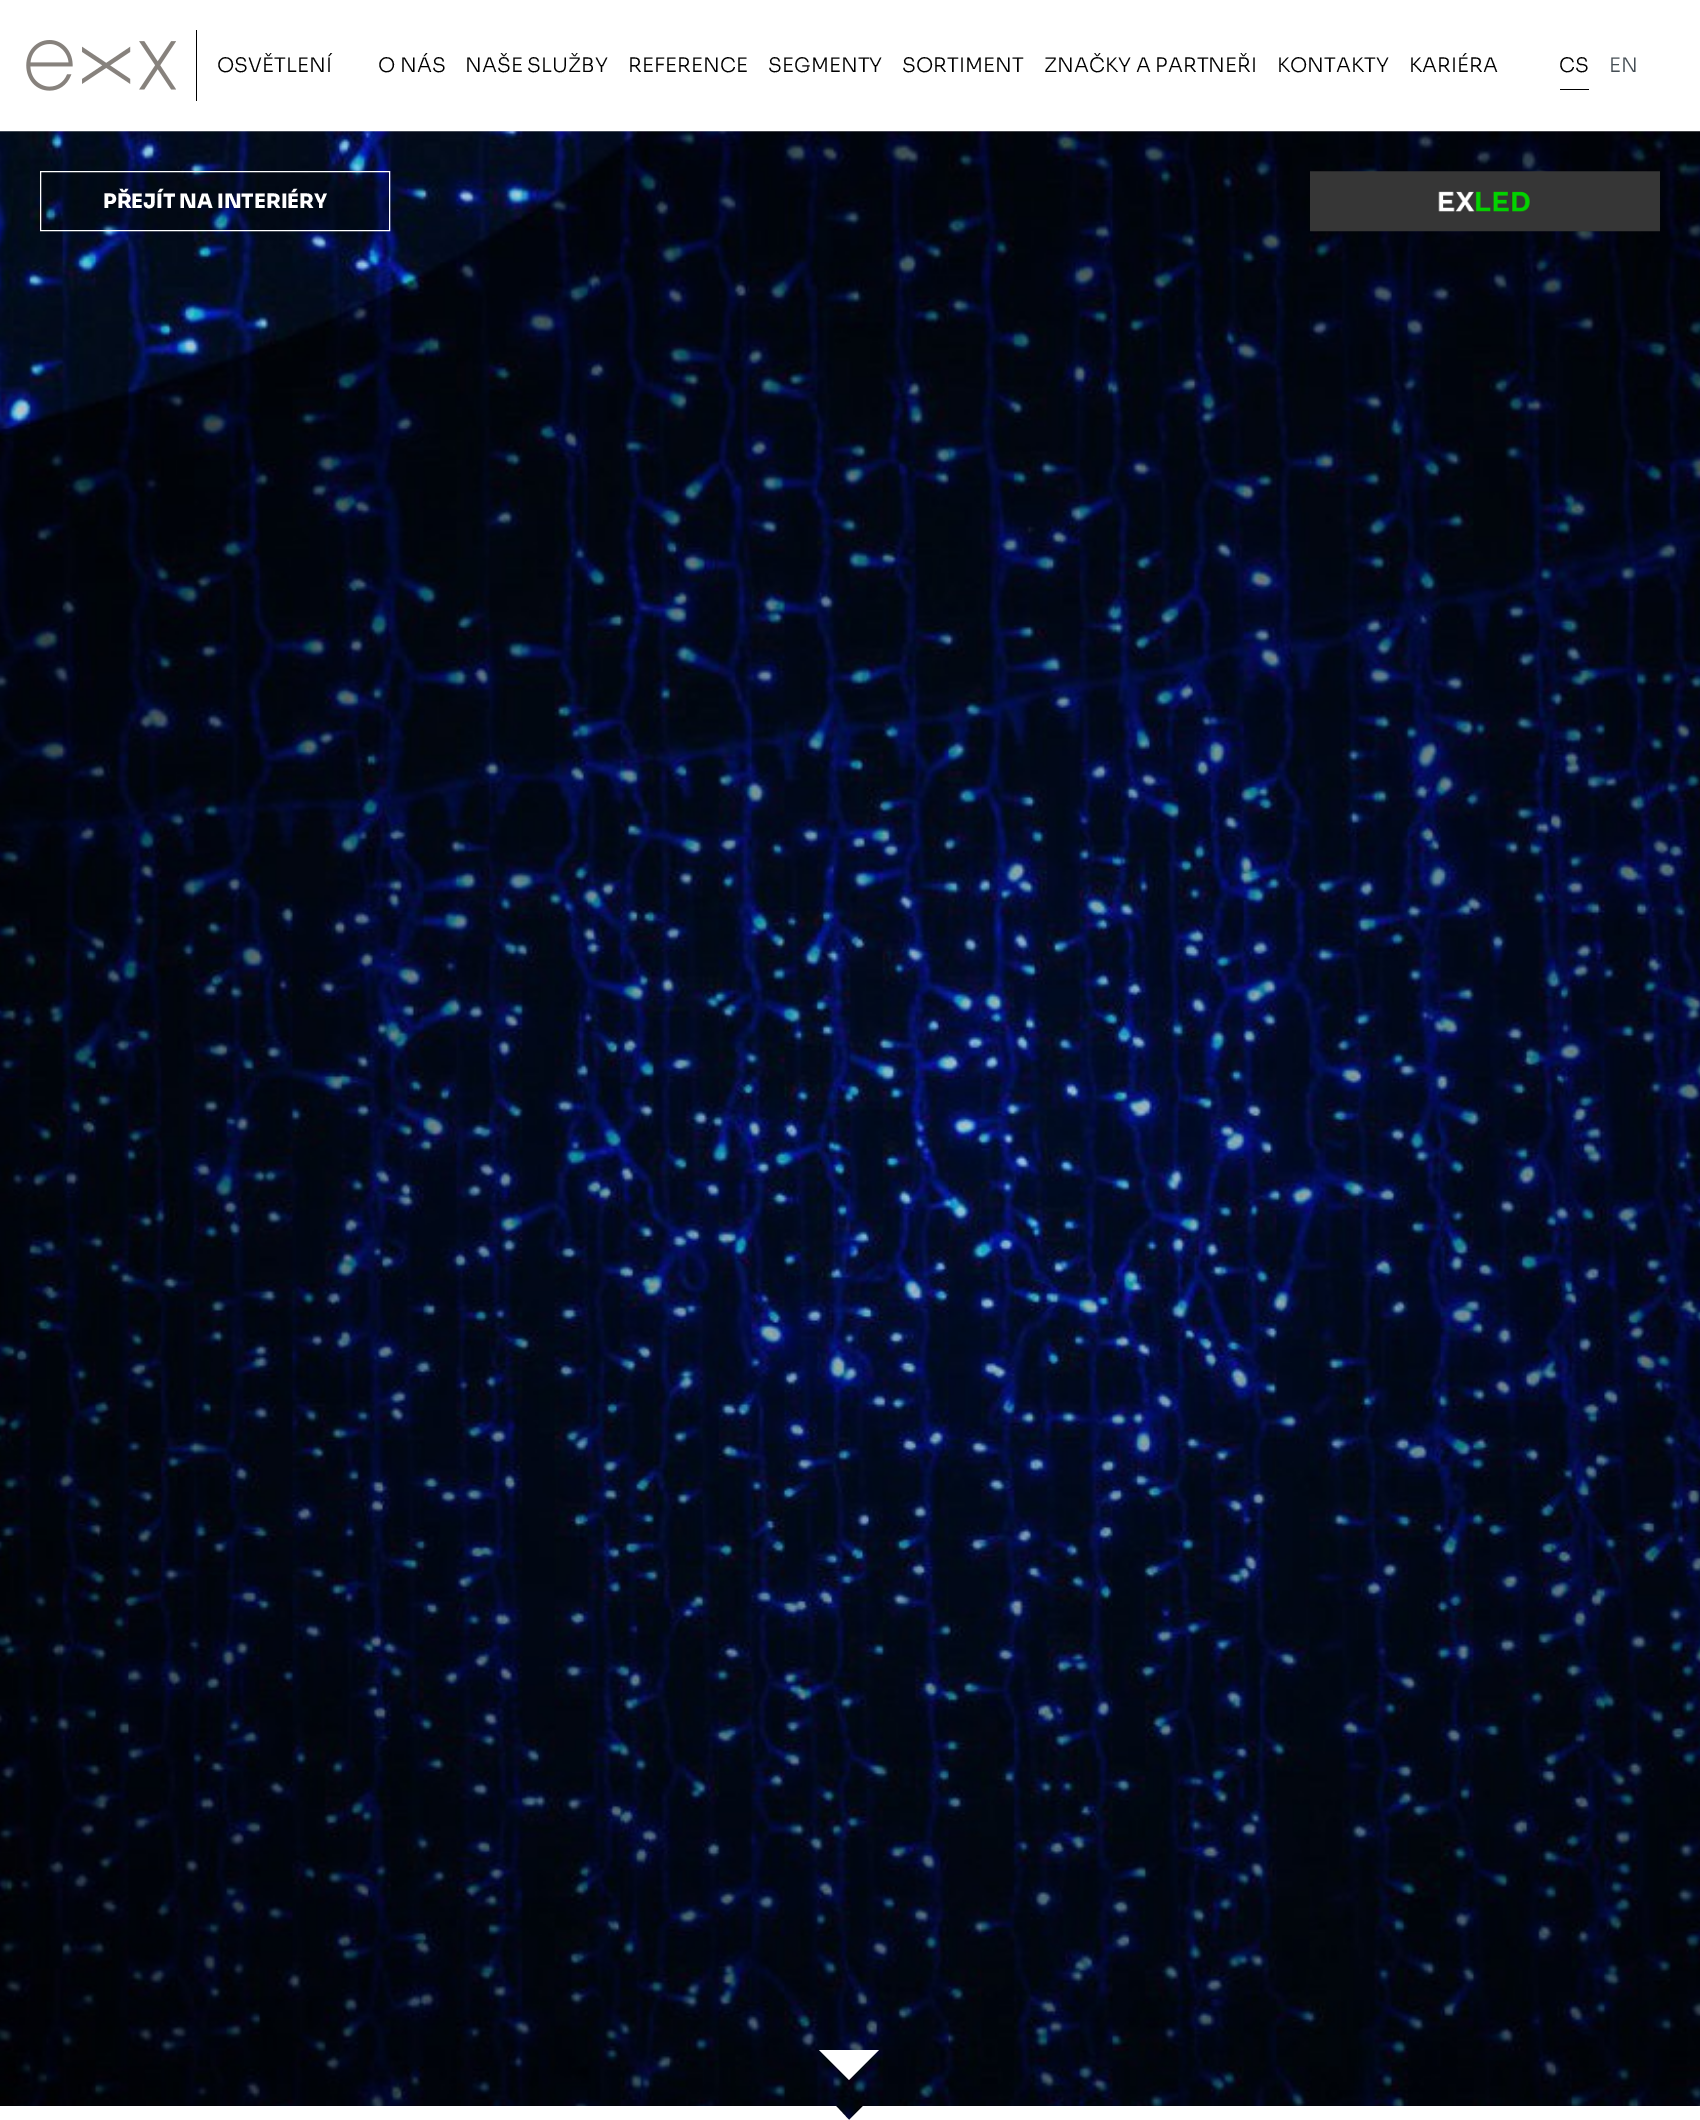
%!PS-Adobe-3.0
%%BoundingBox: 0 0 1700 2120
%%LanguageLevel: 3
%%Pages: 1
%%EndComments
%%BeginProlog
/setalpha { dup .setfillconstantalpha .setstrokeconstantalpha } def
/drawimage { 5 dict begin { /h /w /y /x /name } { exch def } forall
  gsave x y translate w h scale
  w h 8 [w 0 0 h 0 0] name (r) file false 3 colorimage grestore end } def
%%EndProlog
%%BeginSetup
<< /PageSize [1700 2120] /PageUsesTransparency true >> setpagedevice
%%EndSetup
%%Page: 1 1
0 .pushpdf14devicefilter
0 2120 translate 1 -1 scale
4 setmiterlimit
1 setgray
0 0 1700 2120 rectfill
(images/1.raw) 26 40 150 51 drawimage
0 setgray
196 30 1 71 rectfill
1560 89 29 1 rectfill
(images/2.raw) 0 131 1700 1989 drawimage
0.2 setalpha
newpath 40.5 171.5 moveto 389.5 171.5 lineto 389.5 230.5 lineto 40.5 230.5 lineto closepath fill
1 setalpha
1 setgray
newpath 40.5 171.5 moveto 389.5 171.5 lineto 389.5 230.5 lineto 40.5 230.5 lineto closepath stroke
(images/3.raw) 1310 171 350 61 drawimage
newpath 0 2106 moveto 0 2120 lineto 1700 2120 lineto 1700 2106 lineto 863 2106 lineto 849 2120 lineto 836 2106 lineto closepath fill
newpath 819 2050 moveto 879 2050 lineto 849 2080 lineto closepath fill
/Sora-Light [20 0 0 -20 0 0] selectfont
0 setgray
217 72 moveto (OSVĚTLENÍ) show
378 72 moveto (O NÁS) show
465 72 moveto (NAŠE SLUŽBY) show
628 72 moveto (REFERENCE) show
768 72 moveto (SEGMENTY) show
902 72 moveto (SORTIMENT) show
1044 72 moveto (ZNAČKY A PARTNEŘI) show
1277 72 moveto (KONTAKTY) show
1409 72 moveto (KARIÉRA) show
1559 72 moveto (CS) show
0.271 0.306 0.333 setrgbcolor
1609 72 moveto (EN) show
/Sora-ExtraBold [20 0 0 -20 0 0] selectfont
1 setgray
103 208 moveto (PŘEJÍT NA INTERIÉRY) show
.poppdf14devicefilter showpage
%%EOF
